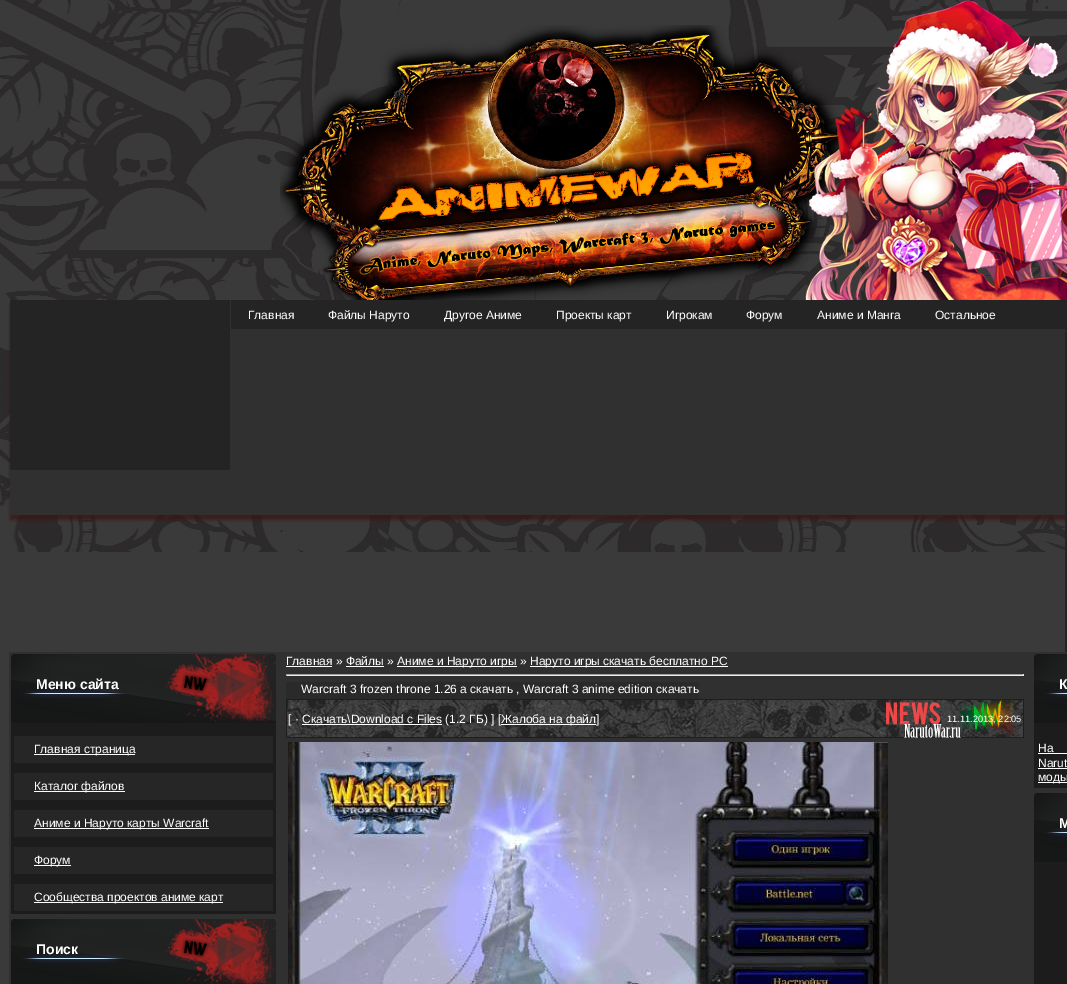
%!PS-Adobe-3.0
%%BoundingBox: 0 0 1067 984
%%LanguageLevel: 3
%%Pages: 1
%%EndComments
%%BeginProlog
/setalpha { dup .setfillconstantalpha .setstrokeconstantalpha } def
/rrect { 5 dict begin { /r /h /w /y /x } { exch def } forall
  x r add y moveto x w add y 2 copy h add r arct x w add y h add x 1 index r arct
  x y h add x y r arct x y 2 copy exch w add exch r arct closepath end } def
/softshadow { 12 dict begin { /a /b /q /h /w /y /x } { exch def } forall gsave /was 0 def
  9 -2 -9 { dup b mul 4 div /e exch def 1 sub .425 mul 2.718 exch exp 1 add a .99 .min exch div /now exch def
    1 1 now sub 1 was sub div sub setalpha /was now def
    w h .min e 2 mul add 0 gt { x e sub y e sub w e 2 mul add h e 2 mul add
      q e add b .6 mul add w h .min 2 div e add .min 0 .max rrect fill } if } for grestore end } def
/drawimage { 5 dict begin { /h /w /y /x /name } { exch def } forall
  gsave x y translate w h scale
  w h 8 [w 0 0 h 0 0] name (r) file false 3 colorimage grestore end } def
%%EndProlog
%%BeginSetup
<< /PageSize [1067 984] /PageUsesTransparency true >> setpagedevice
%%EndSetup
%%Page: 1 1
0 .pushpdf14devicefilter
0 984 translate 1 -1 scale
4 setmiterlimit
0.227 setgray
0 0 1067 984 rectfill
(images/1.raw) 0 0 1067 552 drawimage
(images/2.raw) 280 0 787 300 drawimage
0.239 0.075 0.075 setrgbcolor
10 305 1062 215 0 1.5 0.75 softshadow
0.188 setgray
10 300 1057 215 rectfill
0.141 setgray
10 300 220 170 rectfill
231 300 836 29 rectfill
1065 329 2 2 rectfill
1065 332 2 320 rectfill
0.188 setgray
9 652 1058 332 rectfill
(images/3.raw) 11 654 265 69 drawimage
0.11 setgray
11 723 265 191 rectfill
0.149 setgray
14 736 259 27 rectfill
1 setgray
34 754 101 1 rectfill
0.149 setgray
14 773 259 27 rectfill
1 setgray
34 791 91 1 rectfill
0.149 setgray
14 810 259 27 rectfill
1 setgray
34 828 175 1 rectfill
0.149 setgray
14 847 259 27 rectfill
1 setgray
34 865 37 1 rectfill
0.149 setgray
14 884 259 27 rectfill
1 setgray
34 902 189 1 rectfill
(images/4.raw) 11 919 265 65 drawimage
286 666 46 1 rectfill
397 666 120 1 rectfill
530 666 198 1 rectfill
346 666 38 1 rectfill
0.624 setgray
286 674 738 1 rectfill
0.933 setgray
1023 674 1 2 rectfill
286 675 738 1 rectfill
0.624 setgray
286 674 1 2 rectfill
0.165 setgray
286 682 413 17 rectfill
(images/5.raw) 286 699 738 39 drawimage
1 setgray
501 724 95 1 rectfill
302 724 140 1 rectfill
(images/6.raw) 288 742 600 242 drawimage
(images/7.raw) 1034 654 33 69 drawimage
0.11 setgray
1034 723 33 65 rectfill
1 setgray
1038 753 29 1 rectfill
1038 768 29 1 rectfill
1038 782 29 1 rectfill
(images/7.raw) 1034 793 33 69 drawimage
0.11 setgray
1034 862 33 122 rectfill
/LiberationSans-Regular [12 0 0 -12 0 0] selectfont
1 setgray
248 319 moveto (Главная) show
328 319 moveto (Файлы Наруто) show
444 319 moveto (Другое Аниме) show
556 319 moveto (Проекты карт) show
666 319 moveto (Игрокам) show
746 319 moveto (Форум) show
817 319 moveto (Аниме и Манга) show
935 319 moveto (Остальное) show
/LiberationSans-Bold [14 0 0 -14 0 0] selectfont
36 689 moveto (Меню сайта) show
/LiberationSans-Regular [12 0 0 -12 0 0] selectfont
34 753 moveto (Главная страница) show
34 790 moveto (Каталог файлов) show
34 827 moveto (Аниме и Наруто карты Warcraft) show
34 864 moveto (Форум) show
34 901 moveto (Сообщества проектов аниме карт) show
/LiberationSans-Bold [14 0 0 -14 0 0] selectfont
36 954 moveto (Поиск) show
/LiberationSans-Regular [12 0 0 -12 0 0] selectfont
286 665 moveto (Главная » Файлы ») show
397 665 moveto (Аниме и Наруто игры ») show
530 665 moveto (Наруто игры скачать бесплатно PC) show
301 693 moveto (Warcraft 3 frozen throne 1.26 a скачать , Warcraft 3 anime edition скачать) show
288 723 moveto ([ · Скачать\\Download с Files \(1.2 ГБ\) ] [) show
501 723 moveto (Жалоба на файл]) show
/LiberationSans-Regular [9.25 0 0 -9.25 0 0] selectfont
947 722 moveto (11.11.2013, 22:05) show
/LiberationSans-Bold [14 0 0 -14 0 0] selectfont
1059 689 moveto (К) show
/LiberationSans-Regular [12 0 0 -12 0 0] selectfont
1038 752 moveto (На) show
1038 767 moveto (Narut) show
1038 781 moveto (моды) show
/LiberationSans-Bold [14 0 0 -14 0 0] selectfont
1059 828 moveto (М) show
.poppdf14devicefilter showpage
%%EOF
